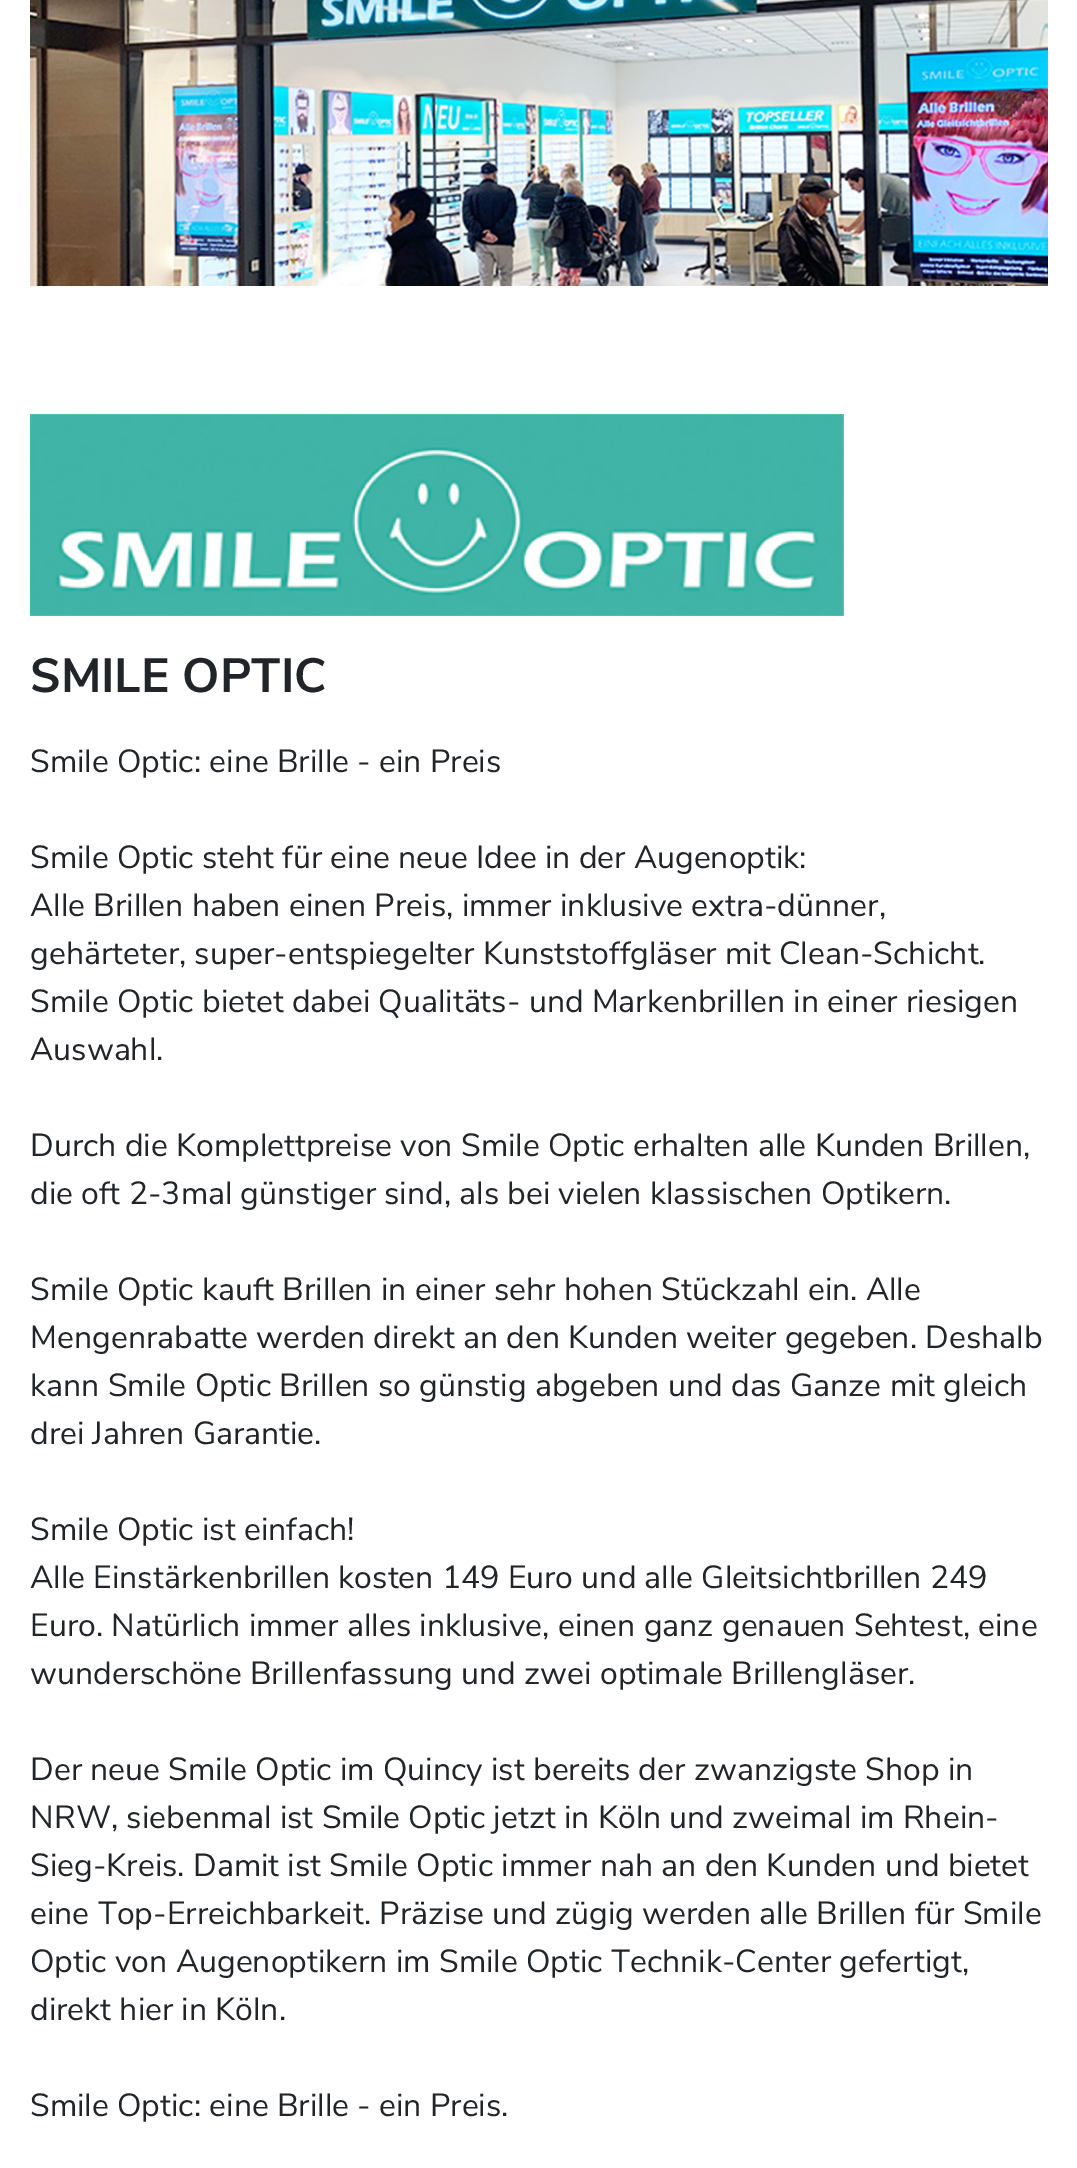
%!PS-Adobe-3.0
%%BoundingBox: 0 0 1077 2168
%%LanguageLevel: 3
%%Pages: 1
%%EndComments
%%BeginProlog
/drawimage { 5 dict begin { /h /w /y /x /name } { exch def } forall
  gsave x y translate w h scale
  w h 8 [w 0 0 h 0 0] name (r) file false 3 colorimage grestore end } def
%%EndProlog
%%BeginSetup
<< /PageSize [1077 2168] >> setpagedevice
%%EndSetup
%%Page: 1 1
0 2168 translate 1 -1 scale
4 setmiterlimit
1 setgray
0 0 1077 2168 rectfill
(images/1.raw) 30 0 1018 286 drawimage
(images/2.raw) 30 414 814 202 drawimage
/NunitoSans-Bold [48 0 0 -48 0 0] selectfont
0.129 0.145 0.161 setrgbcolor
30 692 moveto (SMILE OPTIC) show
/NunitoSans-Regular [32 0 0 -32 0 0] selectfont
30 772 moveto (Smile Optic: eine Brille - ein Preis) show
30 868 moveto (Smile Optic steht für eine neue Idee in der Augenoptik:) show
30 916 moveto (Alle Brillen haben einen Preis, immer inklusive extra-dünner,) show
30 964 moveto (gehärteter, super-entspiegelter Kunststoffgläser mit Clean-Schicht.) show
30 1012 moveto (Smile Optic bietet dabei Qualitäts- und Markenbrillen in einer riesigen) show
30 1060 moveto (Auswahl.) show
30 1156 moveto (Durch die Komplettpreise von Smile Optic erhalten alle Kunden Brillen,) show
30 1204 moveto (die oft 2-3mal günstiger sind, als bei vielen klassischen Optikern.) show
30 1300 moveto (Smile Optic kauft Brillen in einer sehr hohen Stückzahl ein. Alle) show
30 1348 moveto (Mengenrabatte werden direkt an den Kunden weiter gegeben. Deshalb) show
30 1396 moveto (kann Smile Optic Brillen so günstig abgeben und das Ganze mit gleich) show
30 1444 moveto (drei Jahren Garantie.) show
30 1540 moveto (Smile Optic ist einfach!) show
30 1588 moveto (Alle Einstärkenbrillen kosten 149 Euro und alle Gleitsichtbrillen 249) show
30 1636 moveto (Euro. Natürlich immer alles inklusive, einen ganz genauen Sehtest, eine) show
30 1684 moveto (wunderschöne Brillenfassung und zwei optimale Brillengläser.) show
30 1780 moveto (Der neue Smile Optic im Quincy ist bereits der zwanzigste Shop in) show
30 1828 moveto (NRW, siebenmal ist Smile Optic jetzt in Köln und zweimal im Rhein-) show
30 1876 moveto (Sieg-Kreis. Damit ist Smile Optic immer nah an den Kunden und bietet) show
30 1924 moveto (eine Top-Erreichbarkeit. Präzise und zügig werden alle Brillen für Smile) show
30 1972 moveto (Optic von Augenoptikern im Smile Optic Technik-Center gefertigt,) show
30 2020 moveto (direkt hier in Köln.) show
30 2116 moveto (Smile Optic: eine Brille - ein Preis.) show
showpage
%%EOF
